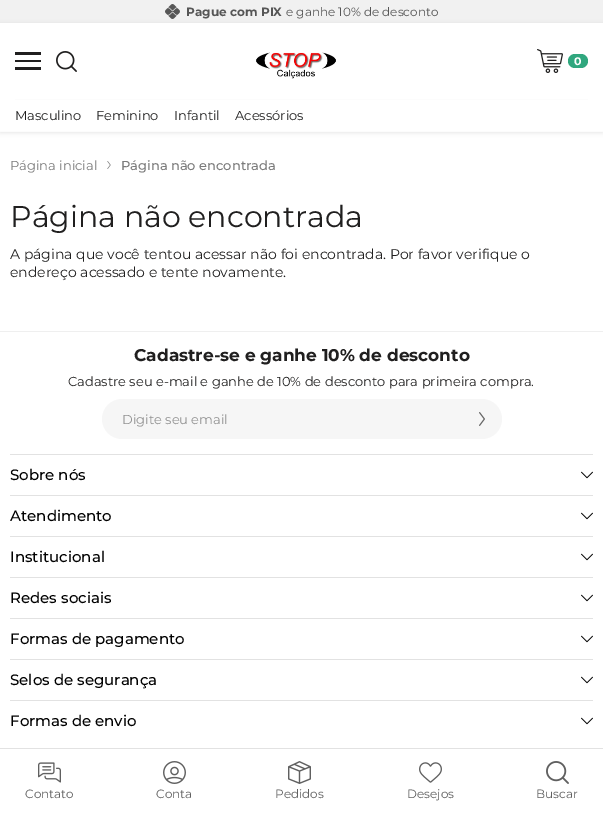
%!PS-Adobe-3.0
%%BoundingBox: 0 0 603 819
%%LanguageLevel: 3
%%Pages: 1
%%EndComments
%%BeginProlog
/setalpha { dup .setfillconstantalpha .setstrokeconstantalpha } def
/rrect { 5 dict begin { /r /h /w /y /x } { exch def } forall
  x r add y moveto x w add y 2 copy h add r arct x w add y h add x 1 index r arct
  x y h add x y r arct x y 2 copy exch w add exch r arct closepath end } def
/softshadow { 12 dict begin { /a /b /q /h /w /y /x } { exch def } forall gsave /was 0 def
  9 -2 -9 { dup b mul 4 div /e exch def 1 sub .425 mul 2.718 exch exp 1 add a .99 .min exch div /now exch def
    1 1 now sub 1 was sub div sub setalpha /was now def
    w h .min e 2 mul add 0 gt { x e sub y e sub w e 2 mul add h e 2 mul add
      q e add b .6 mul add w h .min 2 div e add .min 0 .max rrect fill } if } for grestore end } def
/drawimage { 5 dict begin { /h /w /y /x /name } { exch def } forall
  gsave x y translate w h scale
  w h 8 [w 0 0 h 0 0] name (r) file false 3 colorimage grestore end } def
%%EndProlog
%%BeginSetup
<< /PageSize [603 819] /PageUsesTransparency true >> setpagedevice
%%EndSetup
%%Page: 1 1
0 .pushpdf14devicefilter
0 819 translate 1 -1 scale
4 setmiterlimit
1 setgray
0 0 603 819 rectfill
0.945 setgray
0 0 603 23 rectfill
(images/1.raw) 165 4 15 15 drawimage
gsave
newpath 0 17 moveto 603 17 lineto 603 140 lineto 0 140 lineto closepath 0 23 moveto 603 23 lineto 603 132 lineto 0 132 lineto closepath eoclip newpath
0.322 setgray
0 24 603 109 0 2 0.13 softshadow
grestore
0.988 setgray
0 131 603 1 rectfill
0.125 0.122 0.122 setrgbcolor
15 67 26 3 rectfill
15 60 26 2 rectfill
15 52 26 3 rectfill
(images/2.raw) 56 51 21 21 drawimage
(images/3.raw) 256 52 80 27 drawimage
(images/4.raw) 537 49 26 24 drawimage
0.188 0.655 0.494 setrgbcolor
568 54 20 14 7 rrect fill
0.988 setgray
15 99 573 1 rectfill
(images/5.raw) 107 161 4 8 drawimage
0.937 setgray
0 331 603 1 rectfill
0.965 setgray
102 399 400 40 20 rrect fill
(images/6.raw) 479 412 6 14 drawimage
0.886 setgray
10 454 583 1 rectfill
(images/7.raw) 581 471 12 8 drawimage
10 495 583 1 rectfill
(images/7.raw) 581 512 12 8 drawimage
10 536 583 1 rectfill
(images/7.raw) 581 553 12 8 drawimage
10 577 583 1 rectfill
(images/7.raw) 581 594 12 8 drawimage
10 618 583 1 rectfill
(images/7.raw) 581 635 12 8 drawimage
10 659 583 1 rectfill
(images/7.raw) 581 676 12 8 drawimage
10 700 583 1 rectfill
(images/7.raw) 581 717 12 8 drawimage
0 748 603 1 rectfill
(images/8.raw) 38 762 23 21 drawimage
(images/9.raw) 163 761 23 23 drawimage
(images/10.raw) 288 761 23 23 drawimage
(images/11.raw) 419 762 23 21 drawimage
(images/12.raw) 546 761 23 23 drawimage
/Montserrat-Bold [12 0 0 -12 0 0] selectfont
0.337 setgray
186 16 moveto (Pague com PIX) show
/Montserrat-Regular [12 0 0 -12 0 0] selectfont
286 16 moveto (e ganhe 10% de desconto) show
/Montserrat-Bold [11 0 0 -11 0 0] selectfont
1 setgray
574 65 moveto (0) show
/Montserrat-Regular [13 0 0 -13 0 0] selectfont
0.125 0.122 0.122 setrgbcolor
15 120 moveto (Masculino) show
96 120 moveto (Feminino) show
174 120 moveto (Infantil) show
235 120 moveto (Acessórios) show
0.482 setgray
10 170 moveto (Página inicial) show
/Montserrat-Medium [13 0 0 -13 0 0] selectfont
121 170 moveto (Página não encontrada) show
/Montserrat-Regular [30 0 0 -30 0 0] selectfont
0.125 0.122 0.122 setrgbcolor
10 227 moveto (Página não encontrada) show
/Montserrat-Regular [14 0 0 -14 0 0] selectfont
10 259 moveto (A página que você tentou acessar não foi encontrada. Por favor verifique o) show
10 277 moveto (endereço acessado e tente novamente.) show
/Montserrat-Bold [17 0 0 -17 0 0] selectfont
134 361 moveto (Cadastre-se e ganhe 10% de desconto) show
/Montserrat-Regular [13 0 0 -13 0 0] selectfont
68 386 moveto (Cadastre seu e-mail e ganhe de 10% de desconto para primeira compra.) show
0.569 setgray
122 424 moveto (Digite seu email) show
/Montserrat-Medium [15 0 0 -15 0 0] selectfont
0 setgray
10 480 moveto (Sobre nós) show
10 521 moveto (Atendimento) show
10 562 moveto (Institucional) show
10 603 moveto (Redes sociais) show
10 644 moveto (Formas de pagamento) show
10 685 moveto (Selos de segurança) show
10 726 moveto (Formas de envio) show
/Montserrat-Regular [12 0 0 -12 0 0] selectfont
0.376 setgray
25 798 moveto (Contato) show
156 798 moveto (Conta) show
275 798 moveto (Pedidos) show
407 798 moveto (Desejos) show
536 798 moveto (Buscar) show
.poppdf14devicefilter showpage
%%EOF
